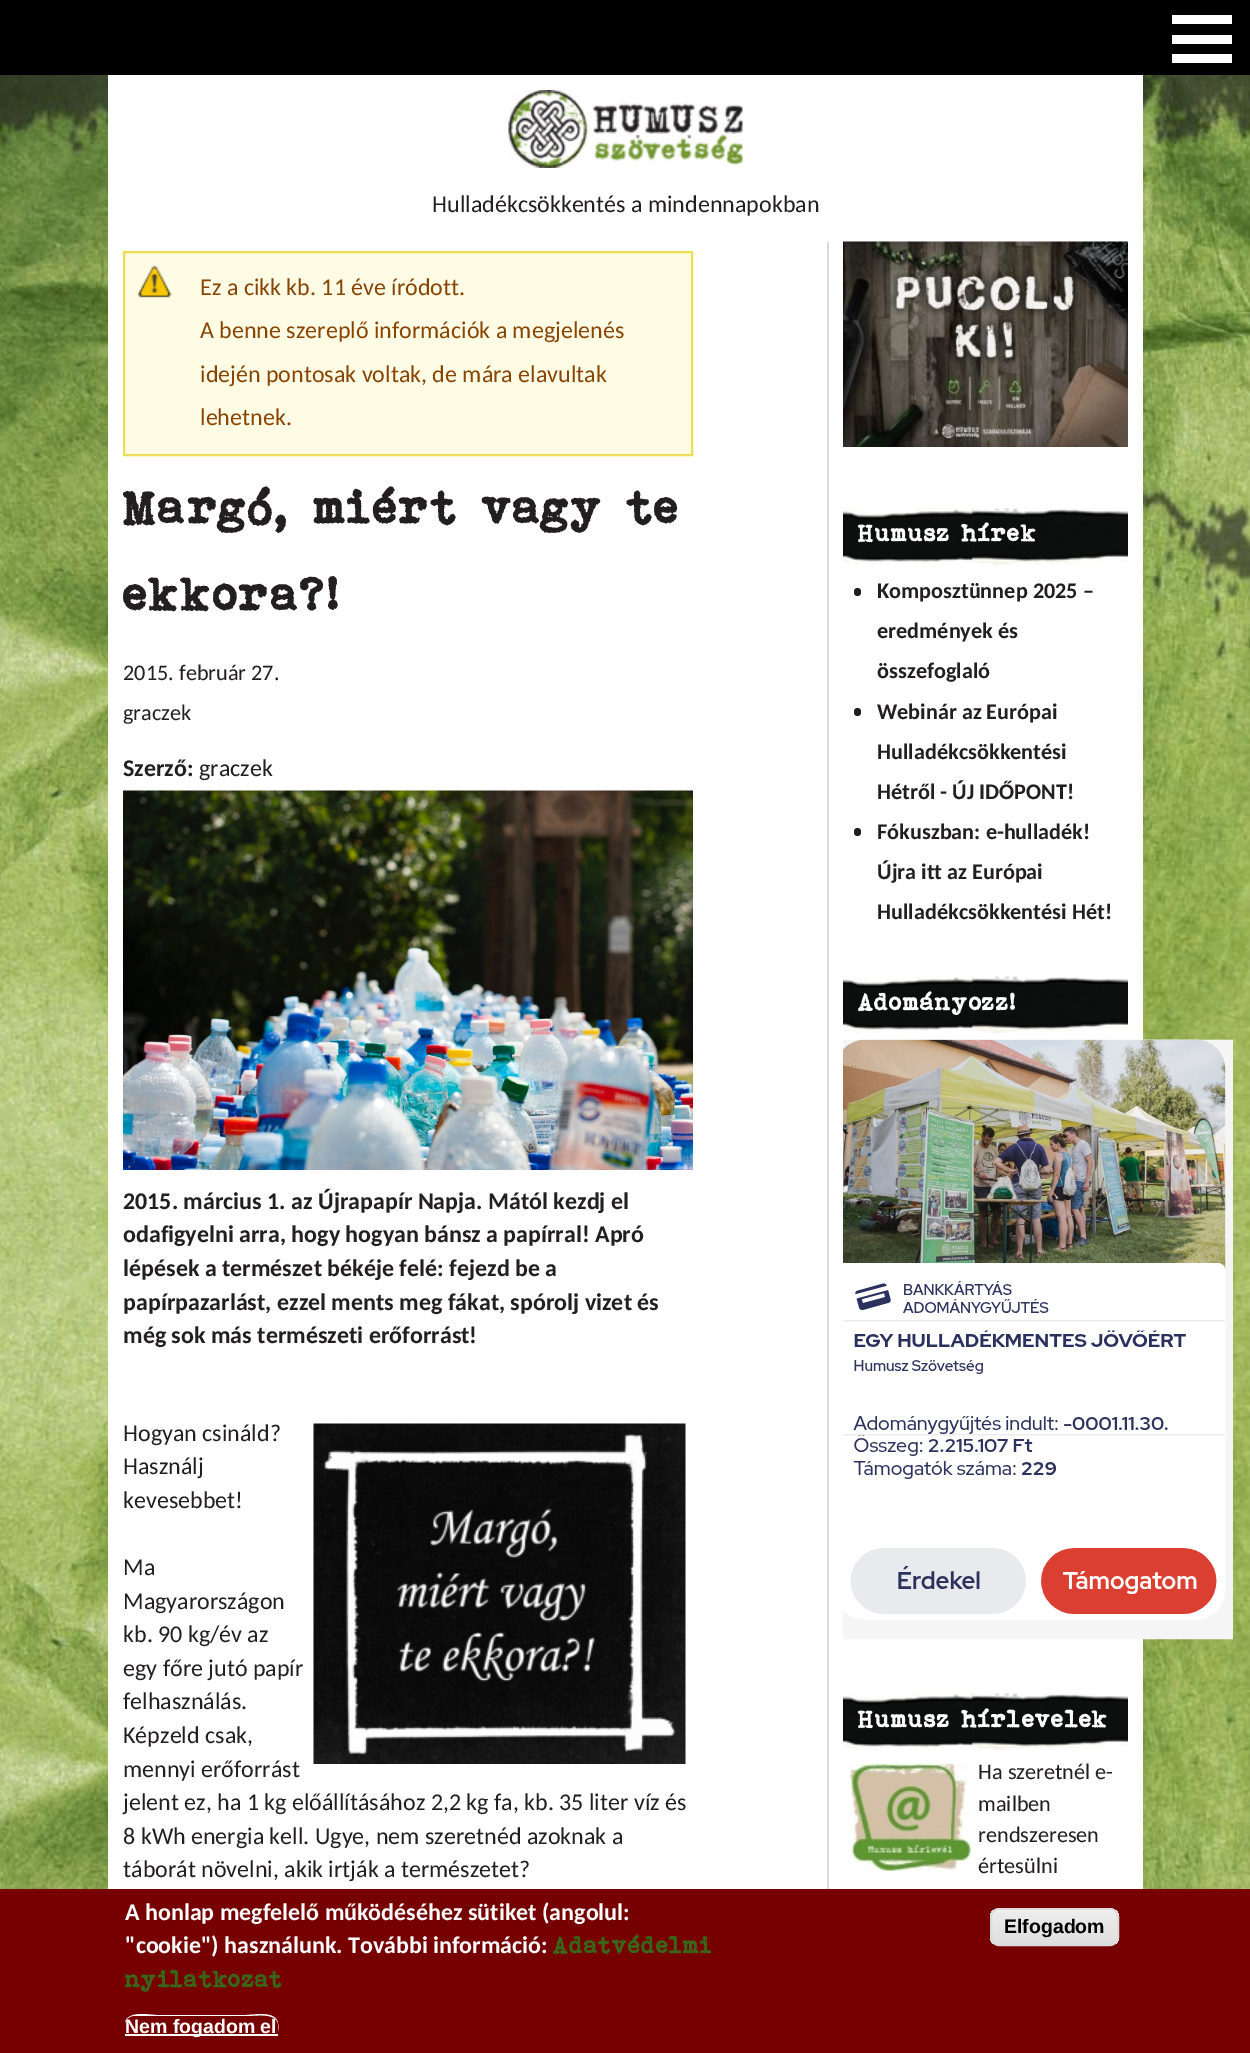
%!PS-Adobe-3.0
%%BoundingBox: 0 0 1250 2053
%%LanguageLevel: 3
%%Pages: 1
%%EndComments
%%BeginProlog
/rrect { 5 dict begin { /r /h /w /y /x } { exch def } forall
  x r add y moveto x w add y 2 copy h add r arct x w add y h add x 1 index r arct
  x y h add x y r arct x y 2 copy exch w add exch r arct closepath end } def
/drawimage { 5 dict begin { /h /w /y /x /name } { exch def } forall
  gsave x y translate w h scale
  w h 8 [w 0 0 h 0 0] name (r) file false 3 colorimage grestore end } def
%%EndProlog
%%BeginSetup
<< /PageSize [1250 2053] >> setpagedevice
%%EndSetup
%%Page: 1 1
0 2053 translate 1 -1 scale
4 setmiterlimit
1 setgray
0 0 1250 2053 rectfill
(images/1.raw) 0 75 1250 1814 drawimage
0 setgray
0 0 1250 75 rectfill
1 setgray
1172 15 60 9 rectfill
1172 35 60 9 rectfill
1172 54 60 9 rectfill
108 75 1035 1814 rectfill
(images/2.raw) 508 90 235 78 drawimage
1 0.988 0.898 setrgbcolor
125 253 566 201 rectfill
(images/3.raw) 137 265 35 33 drawimage
0.933 0.867 0.333 setrgbcolor
2 setlinewidth
124 252 568 203 rectstroke
(images/4.raw) 123 790 570 380 drawimage
(images/5.raw) 313 1423 373 341 drawimage
0.867 setgray
827 242 2 1647 rectfill
(images/6.raw) 843 241 285 206 drawimage
(images/7.raw) 843 508 285 58 drawimage
0.137 0.122 0.125 setrgbcolor
854 588 7 8 3.5 rrect fill
854 708 7 8 3.5 rrect fill
854 828 7 8 3.5 rrect fill
(images/7.raw) 843 976 285 58 drawimage
(images/8.raw) 843 1039 390 601 drawimage
(images/7.raw) 843 1693 285 58 drawimage
(images/9.raw) 850 1764 121 107 drawimage
0.463 0 0 setrgbcolor
0 1889 1250 164 rectfill
1 setgray
newpath 134 2016 moveto 246 2016 lineto 258 2016 282 2011 278 2031 curveto 278 2024 lineto 277 2010 253 2015 246 2015 curveto 156 2015 lineto 151 2015 127 2010 125 2023 curveto 126 2019 129 2016 134 2016 curveto closepath fill
125 2034 153 2 rectfill
gsave
990 1908 129 38 9 rrect clip newpath
gsave newpath 990 1910 moveto 1119 1910 lineto 1119 1944 lineto 990 1944 lineto closepath clip newpath
<< /ShadingType 2 /ColorSpace /DeviceRGB /Coords [1055 1910 1055 1944] /Extend [true true] /Function << /FunctionType 3 /Domain [0 1] /Functions [<< /FunctionType 2 /Domain [0 1] /C0 [0.929 0.929 0.929] /C1 [0.929 0.929 0.929] /N 1 >> << /FunctionType 2 /Domain [0 1] /C0 [0.929 0.929 0.929] /C1 [0.875 0.875 0.875] /N 1 >>] /Bounds [0.05] /Encode [0 1 0 1] >> >> shfill grestore
grestore
newpath 999 1911 moveto 1110 1911 lineto 1114 1911 1118 1914 1118 1918 curveto 1118 1914 1114 1910 1110 1910 curveto 1000 1910 lineto 996 1910 992 1914 992 1918 curveto 992 1914 995 1911 999 1911 curveto closepath fill
0.863 setgray
991 1909 127 36 8 rrect stroke
/Carlito-Regular [24 0 0 -24 0 0] selectfont
0.137 0.122 0.125 setrgbcolor
432 212 moveto (Hulladékcsökkentés a mindennapokban) show
0.533 0.267 0 setrgbcolor
200 295 moveto (Ez a cikk kb. 11 éve íródott.) show
200 338 moveto (A benne szereplő információk a megjelenés) show
200 382 moveto (idején pontosak voltak, de mára elavultak) show
200 425 moveto (lehetnek.) show
/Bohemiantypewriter-Bold [48 0 0 -48 0 0] selectfont
0.137 0.122 0.125 setrgbcolor
123 523 moveto (Margó, miért vagy te) show
123 610 moveto (ekkora?!) show
/Carlito-Regular [22.25 0 0 -22.25 0 0] selectfont
123 680 moveto (2015. február 27.) show
123 720 moveto (graczek) show
/Carlito-Bold [24 0 0 -24 0 0] selectfont
123 776 moveto (Szerző:) show
/Carlito-Regular [24 0 0 -24 0 0] selectfont
199 776 moveto (graczek) show
/Carlito-Bold [24 0 0 -24 0 0] selectfont
123 1209 moveto (2015. március 1. az Újrapapír Napja. Mától kezdj el) show
123 1242 moveto (odafigyelni arra, hogy hogyan bánsz a papírral! Apró) show
123 1276 moveto (lépések a természet békéje felé: fejezd be a) show
123 1310 moveto (papírpazarlást, ezzel ments meg fákat, spórolj vizet és) show
123 1343 moveto (még sok más természeti erőforrást!) show
/Carlito-Regular [24 0 0 -24 0 0] selectfont
123 1441 moveto (Hogyan csináld?) show
123 1474 moveto (Használj) show
123 1508 moveto (kevesebbet!) show
123 1575 moveto (Ma) show
123 1609 moveto (Magyarországon) show
123 1642 moveto (kb. 90 kg/év az) show
123 1676 moveto (egy főre jutó papír) show
123 1709 moveto (felhasználás.) show
123 1743 moveto (Képzeld csak,) show
123 1777 moveto (mennyi erőforrást) show
123 1810 moveto (jelent ez, ha 1 kg előállításához 2,2 kg fa, kb. 35 liter víz és) show
123 1844 moveto (8 kWh energia kell. Ugye, nem szeretnéd azoknak a) show
123 1877 moveto (táborát növelni, akik irtják a természetet?) show
/Bohemiantypewriter-Bold [24.5 0 0 -24.5 0 0] selectfont
1 setgray
858 541 moveto (Humusz hírek) show
/Carlito-Bold [22.25 0 0 -22.25 0 0] selectfont
0.137 0.122 0.125 setrgbcolor
877 598 moveto (Komposztünnep 2025 –) show
877 638 moveto (eredmények és) show
877 678 moveto (összefoglaló) show
877 719 moveto (Webinár az Európai) show
877 759 moveto (Hulladékcsökkentési) show
877 799 moveto (Hétről - ÚJ IDŐPONT!) show
877 839 moveto (Fókuszban: e-hulladék!) show
877 879 moveto (Újra itt az Európai) show
877 919 moveto (Hulladékcsökkentési Hét!) show
/Bohemiantypewriter-Bold [24.5 0 0 -24.5 0 0] selectfont
1 setgray
858 1010 moveto (Adományozz!) show
858 1727 moveto (Humusz hírlevelek) show
/Carlito-Regular [22.25 0 0 -22.25 0 0] selectfont
0.137 0.122 0.125 setrgbcolor
978 1779 moveto (Ha szeretnél e-) show
978 1811 moveto (mailben) show
978 1842 moveto (rendszeresen) show
978 1873 moveto (értesülni) show
/Carlito-Bold [24 0 0 -24 0 0] selectfont
1 setgray
125 1920 moveto (A honlap megfelelő működéséhez sütiket \(angolul:) show
125 1953 moveto ("cookie"\) használunk. További információ:) show
/Bohemiantypewriter-Bold [24 0 0 -24 0 0] selectfont
0.227 0.392 0.094 setrgbcolor
553 1953 moveto (Adatvédelmi) show
125 1987 moveto (nyilatkozat) show
/LiberationSans-Bold [19.5 0 0 -19.5 0 0] selectfont
1 setgray
125 2033 moveto (Nem fogadom el) show
0 setgray
1004 1933 moveto (Elfogadom) show
showpage
%%EOF
